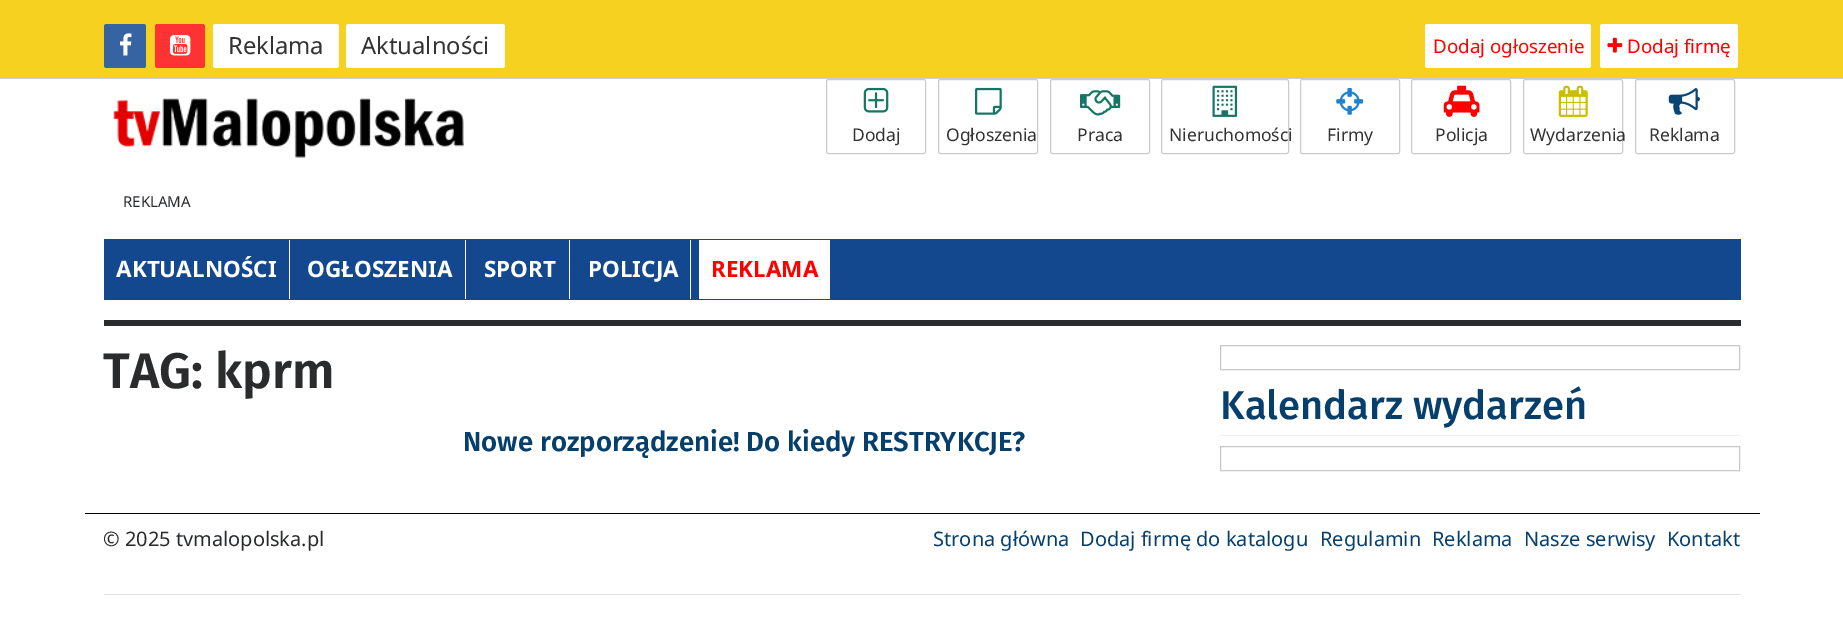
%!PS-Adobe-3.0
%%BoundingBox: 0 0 1843 617
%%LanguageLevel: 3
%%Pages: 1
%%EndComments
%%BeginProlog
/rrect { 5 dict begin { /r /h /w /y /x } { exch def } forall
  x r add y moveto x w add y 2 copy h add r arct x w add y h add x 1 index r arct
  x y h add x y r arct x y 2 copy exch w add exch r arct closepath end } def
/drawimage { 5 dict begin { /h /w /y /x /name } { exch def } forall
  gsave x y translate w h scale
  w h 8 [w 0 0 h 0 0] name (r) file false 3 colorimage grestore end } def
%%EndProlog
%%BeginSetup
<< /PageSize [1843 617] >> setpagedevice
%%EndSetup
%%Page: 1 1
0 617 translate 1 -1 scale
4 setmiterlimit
1 setgray
0 0 1843 617 rectfill
0.969 0.82 0.122 setrgbcolor
0 0 1843 78 rectfill
0.8 setgray
0 78 1843 1 rectfill
0.212 0.392 0.635 setrgbcolor
104 24 42 44 2.5 rrect fill
(images/1.raw) 120 33 12 23 drawimage
1 0.2 0.204 setrgbcolor
155 24 50 44 2.5 rrect fill
(images/2.raw) 170 35 21 21 drawimage
1 setgray
213 24 126 44 2.5 rrect fill
346 24 159 44 2.5 rrect fill
1425 24 166 44 2.5 rrect fill
1600 24 138 44 2.5 rrect fill
(images/3.raw) 1607 37 16 16 drawimage
(images/4.raw) 113 98 351 60 drawimage
0.796 setgray
826.5 79.5 99 74 2 rrect stroke
(images/5.raw) 863 87 26 26 drawimage
938.5 79.5 99 74 2 rrect stroke
(images/6.raw) 975 87 27 28 drawimage
1050.5 79.5 99 74 2 rrect stroke
(images/7.raw) 1080 90 41 26 drawimage
1161.5 79.5 127 74 2 rrect stroke
(images/8.raw) 1212 85 26 32 drawimage
1300.5 79.5 99 74 2 rrect stroke
(images/9.raw) 1336 87 28 28 drawimage
1411.5 79.5 99 74 2 rrect stroke
(images/10.raw) 1443 85 37 32 drawimage
1523.5 79.5 99 74 2 rrect stroke
(images/11.raw) 1558 85 30 32 drawimage
1635.5 79.5 99 74 2 rrect stroke
(images/12.raw) 1668 88 32 27 drawimage
0.075 0.282 0.557 setrgbcolor
104 239 1637 61 rectfill
1 setgray
289 240 1 59 rectfill
465 240 1 59 rectfill
569 240 1 59 rectfill
690 240 1 59 rectfill
699 240 131 59 rectfill
0.161 0.169 0.173 setrgbcolor
104 320 1637 6 rectfill
0.78 setgray
1220.5 345.5 519 24 rectstroke
0.933 setgray
1220 435 520 1 rectfill
0.78 setgray
1220.5 446.5 519 24 rectstroke
0 setgray
85 513 1675 1 rectfill
0.902 setgray
104 594 1637 1 rectfill
/NotoSans-Regular [23.75 0 0 -23.75 0 0] selectfont
0.2 setgray
228 54 moveto (Reklama) show
361 54 moveto (Aktualności) show
/NotoSans-Regular [18.75 0 0 -18.75 0 0] selectfont
1 0 0.004 setrgbcolor
1433 53 moveto (Dodaj ogłoszenie) show
1627 53 moveto (Dodaj firmę) show
/NotoSans-Regular [17.5 0 0 -17.5 0 0] selectfont
0.2 setgray
852 141 moveto (Dodaj) show
946 141 moveto (Ogłoszenia) show
1077 141 moveto (Praca) show
1169 141 moveto (Nieruchomości) show
1327 141 moveto (Firmy) show
1435 141 moveto (Policja) show
1530 141 moveto (Wydarzenia) show
1649 141 moveto (Reklama) show
/NotoSans-Regular [15 0 0 -15 0 0] selectfont
0.161 0.169 0.173 setrgbcolor
123 207 moveto (REKLAMA) show
/NotoSans-Bold [22.5 0 0 -22.5 0 0] selectfont
1 setgray
116 277 moveto (AKTUALNOŚCI) show
307 277 moveto (OGŁOSZENIA) show
484 277 moveto (SPORT) show
588 277 moveto (POLICJA) show
1 0 0.004 setrgbcolor
711 277 moveto (REKLAMA) show
/FiraSans-SemiBold [50 0 0 -50 0 0] selectfont
0.161 0.169 0.173 setrgbcolor
103 388 moveto (TAG: kprm) show
/FiraSans-SemiBold [27.5 0 0 -27.5 0 0] selectfont
0.024 0.247 0.424 setrgbcolor
463 451 moveto (Nowe rozporządzenie! Do kiedy RESTRYKCJE?) show
/FiraSans-Medium [40 0 0 -40 0 0] selectfont
1220 419 moveto (Kalendarz wydarzeń) show
/NotoSans-Regular [20 0 0 -20 0 0] selectfont
0.161 0.169 0.173 setrgbcolor
103 546 moveto (© 2025 tvmalopolska.pl) show
0.024 0.247 0.424 setrgbcolor
933 546 moveto (Strona główna) show
1080 546 moveto (Dodaj firmę do katalogu) show
1320 546 moveto (Regulamin) show
1432 546 moveto (Reklama) show
1524 546 moveto (Nasze serwisy) show
1667 546 moveto (Kontakt) show
showpage
%%EOF
